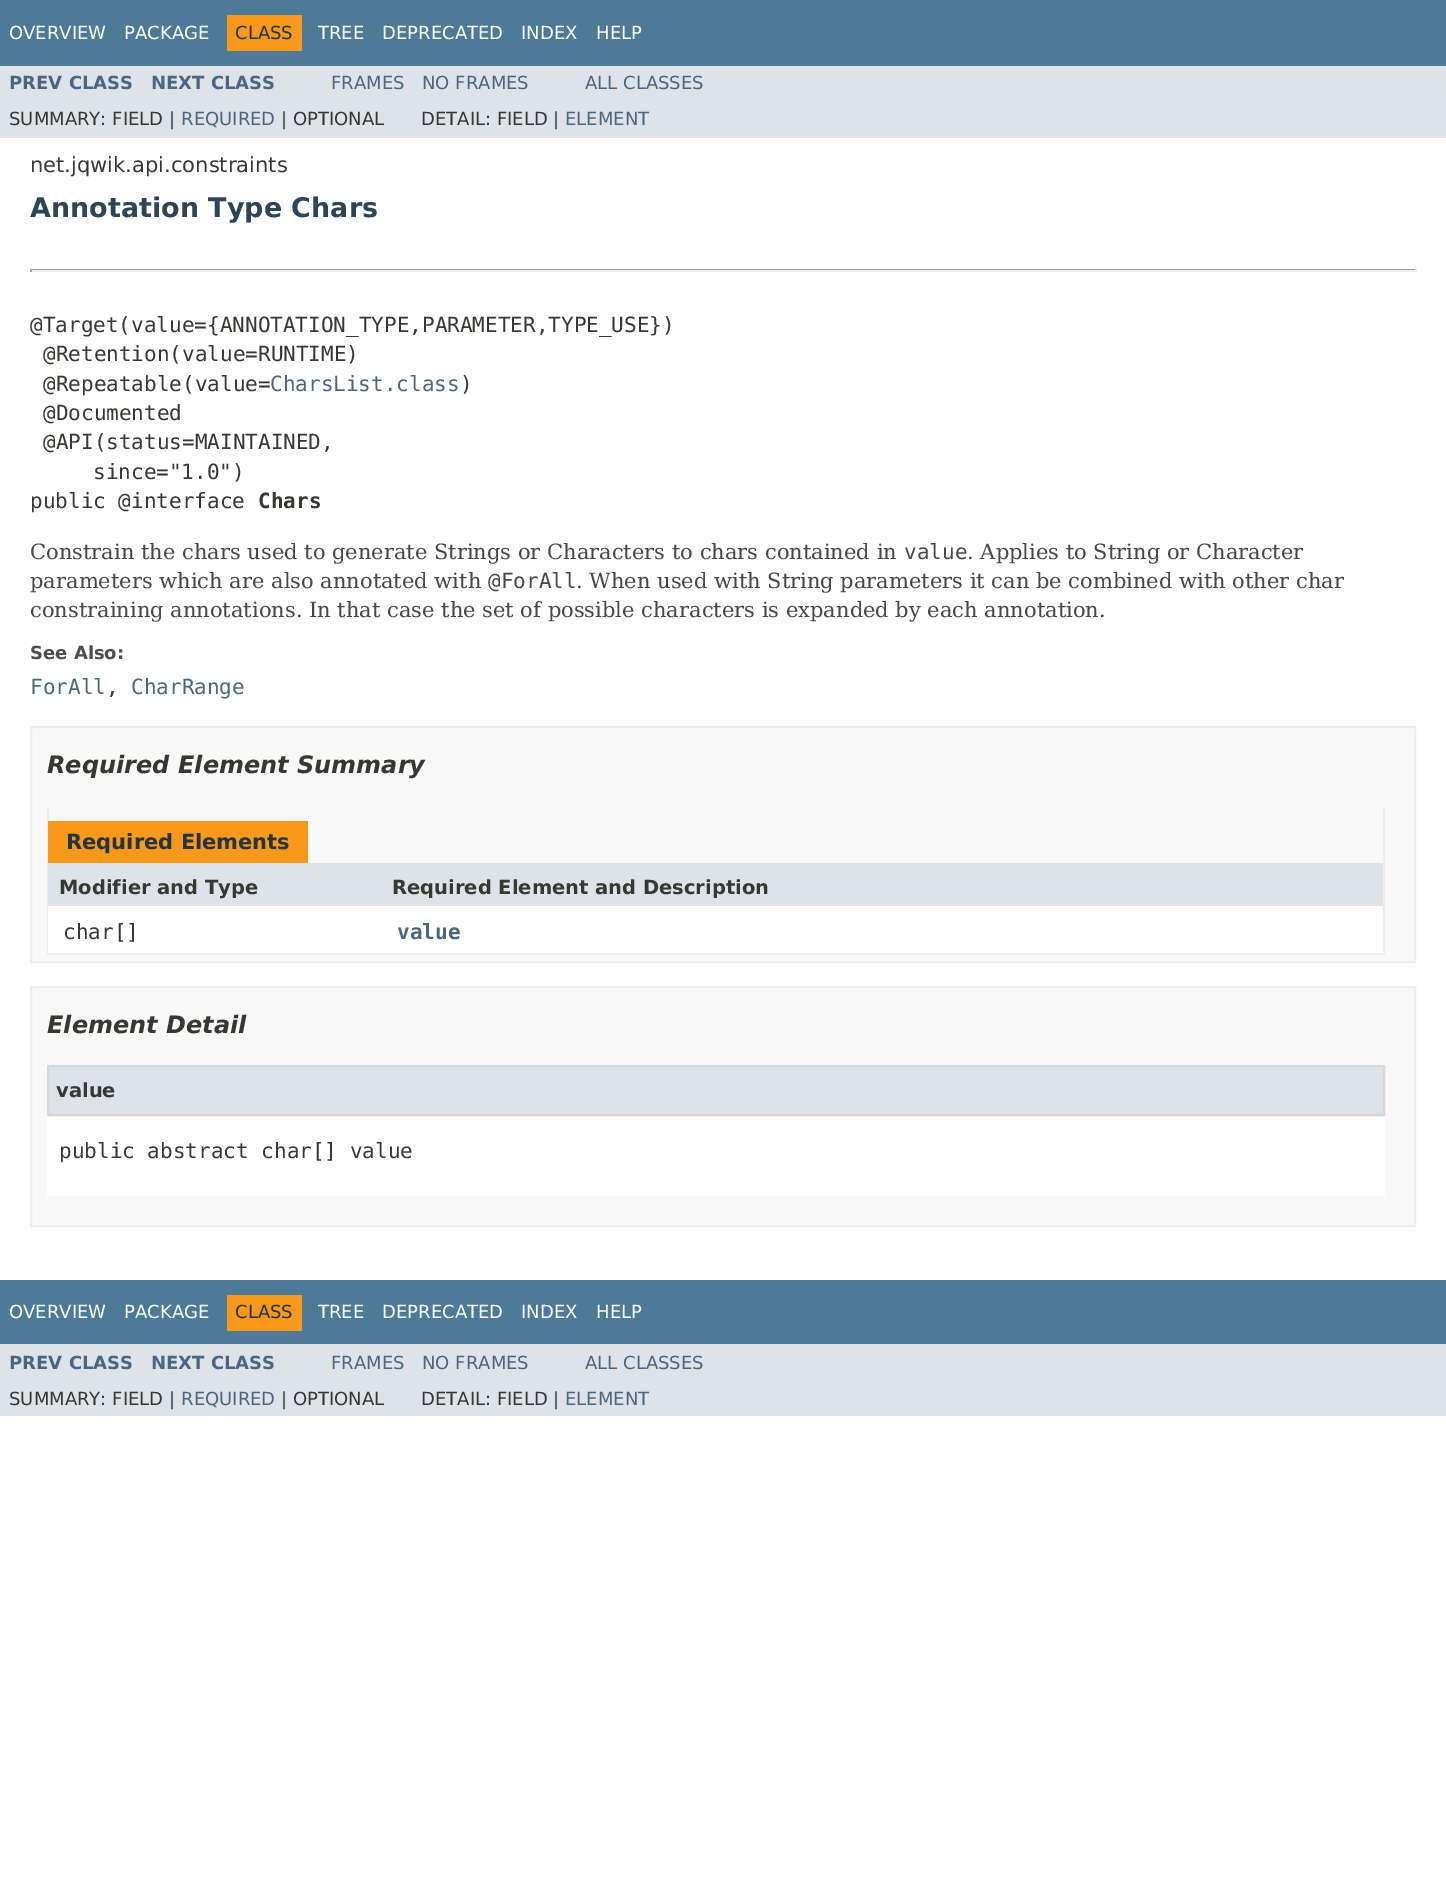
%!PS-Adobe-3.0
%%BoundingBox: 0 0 1446 1879
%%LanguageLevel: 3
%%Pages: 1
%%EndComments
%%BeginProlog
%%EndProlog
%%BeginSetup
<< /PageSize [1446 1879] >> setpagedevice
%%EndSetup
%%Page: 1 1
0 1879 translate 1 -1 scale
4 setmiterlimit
1 setgray
0 0 1446 1879 rectfill
0.302 0.478 0.592 setrgbcolor
0 0 1446 66 rectfill
0.973 0.596 0.114 setrgbcolor
227 15 75 36 rectfill
0.871 0.89 0.914 setrgbcolor
0 66 1446 72 rectfill
0.624 setgray
30 269 1386 1 rectfill
0.933 setgray
1415 269 2 3 rectfill
30 270 1386 2 rectfill
0.624 setgray
30 269 2 3 rectfill
0.973 setgray
newpath 31 727 moveto 1415 727 lineto 1415 962 lineto 31 962 lineto closepath gsave fill grestore
0.929 setgray
2 setlinewidth
stroke
0.933 setgray
1383 806 2 148 rectfill
47 953 1338 2 rectfill
47 806 2 148 rectfill
0.973 0.596 0.114 setrgbcolor
48 821 260 42 rectfill
0.871 0.89 0.914 setrgbcolor
48 863 1335 43 rectfill
1 setgray
48 906 1335 47 rectfill
0.973 setgray
newpath 31 987 moveto 1415 987 lineto 1415 1226 lineto 31 1226 lineto closepath gsave fill grestore
0.929 setgray
stroke
1 setgray
47 1116 1338 80 rectfill
0.871 0.89 0.914 setrgbcolor
newpath 48 1066 moveto 1384 1066 lineto 1384 1115 lineto 48 1115 lineto closepath gsave fill grestore
0.816 0.851 0.878 setrgbcolor
stroke
0.302 0.478 0.592 setrgbcolor
0 1280 1446 64 rectfill
0.973 0.596 0.114 setrgbcolor
227 1295 75 36 rectfill
0.871 0.89 0.914 setrgbcolor
0 1344 1446 72 rectfill
/DejaVuSans-Regular [18 0 0 -18 0 0] selectfont
1 setgray
9 39 moveto (OVERVIEW) show
124 39 moveto (PACKAGE) show
0.145 0.204 0.255 setrgbcolor
235 39 moveto (CLASS) show
1 setgray
318 39 moveto (TREE) show
382 39 moveto (DEPRECATED) show
521 39 moveto (INDEX) show
596 39 moveto (HELP) show
/DejaVuSans-Bold [18 0 0 -18 0 0] selectfont
0.29 0.404 0.51 setrgbcolor
9 89 moveto (PREV CLASS) show
151 89 moveto (NEXT CLASS) show
/DejaVuSans-Regular [18 0 0 -18 0 0] selectfont
331 89 moveto (FRAMES) show
422 89 moveto (NO FRAMES) show
585 89 moveto (ALL CLASSES) show
0.208 0.22 0.2 setrgbcolor
9 125 moveto (SUMMARY: FIELD |) show
0.29 0.404 0.51 setrgbcolor
181 125 moveto (REQUIRED) show
0.208 0.22 0.2 setrgbcolor
281 125 moveto (| OPTIONAL) show
421 125 moveto (DETAIL: FIELD |) show
0.29 0.404 0.51 setrgbcolor
565 125 moveto (ELEMENT) show
/DejaVuSans-Regular [21 0 0 -21 0 0] selectfont
0.208 0.22 0.2 setrgbcolor
30 172 moveto (net.jqwik.api.constraints) show
/DejaVuSans-Bold [27 0 0 -27 0 0] selectfont
0.173 0.271 0.341 setrgbcolor
30 217 moveto (Annotation Type Chars) show
/DejaVuSansMono-Regular [21 0 0 -21 0 0] selectfont
0.208 0.22 0.2 setrgbcolor
30 332 moveto (@Target\(value={ANNOTATION_TYPE,PARAMETER,TYPE_USE}\)) show
43 361 moveto (@Retention\(value=RUNTIME\)) show
43 391 moveto (@Repeatable\(value=) show
0.29 0.404 0.51 setrgbcolor
270 391 moveto (CharsList.class) show
0.208 0.22 0.2 setrgbcolor
460 391 moveto (\)) show
43 420 moveto (@Documented) show
43 449 moveto (@API\(status=MAINTAINED,) show
93 479 moveto (since="1.0"\)) show
30 508 moveto (public @interface) show
/DejaVuSansMono-Bold [21 0 0 -21 0 0] selectfont
258 508 moveto (Chars) show
/DejaVuSerif-Regular [21 0 0 -21 0 0] selectfont
0.278 setgray
30 559 moveto (Constrain the chars used to generate Strings or Characters to chars contained in) show
/DejaVuSansMono-Regular [21 0 0 -21 0 0] selectfont
904 559 moveto (value) show
/DejaVuSerif-Regular [21 0 0 -21 0 0] selectfont
967 559 moveto (. Applies to String or Character) show
30 588 moveto (parameters which are also annotated with) show
/DejaVuSansMono-Regular [21 0 0 -21 0 0] selectfont
488 588 moveto (@ForAll) show
/DejaVuSerif-Regular [21 0 0 -21 0 0] selectfont
576 588 moveto (. When used with String parameters it can be combined with other char) show
30 617 moveto (constraining annotations. In that case the set of possible characters is expanded by each annotation.) show
/DejaVuSans-Bold [18 0 0 -18 0 0] selectfont
0.306 setgray
30 659 moveto (See Also:) show
/DejaVuSansMono-Regular [21 0 0 -21 0 0] selectfont
0.29 0.404 0.51 setrgbcolor
30 694 moveto (ForAll) show
0.208 0.22 0.2 setrgbcolor
106 694 moveto (,) show
0.29 0.404 0.51 setrgbcolor
131 694 moveto (CharRange) show
/DejaVuSans-BoldItalic [24 0 0 -24 0 0] selectfont
0.208 0.22 0.2 setrgbcolor
47 773 moveto (Required Element Summary) show
/DejaVuSans-Bold [21 0 0 -21 0 0] selectfont
0.145 0.204 0.255 setrgbcolor
66 849 moveto (Required Elements) show
/DejaVuSans-Bold [19.5 0 0 -19.5 0 0] selectfont
0.208 0.22 0.2 setrgbcolor
59 894 moveto (Modifier and Type) show
392 894 moveto (Required Element and Description) show
/DejaVuSansMono-Regular [21 0 0 -21 0 0] selectfont
63 939 moveto (char[]) show
/DejaVuSansMono-Bold [21 0 0 -21 0 0] selectfont
0.29 0.404 0.51 setrgbcolor
397 939 moveto (value) show
/DejaVuSans-BoldItalic [24 0 0 -24 0 0] selectfont
0.208 0.22 0.2 setrgbcolor
47 1033 moveto (Element Detail) show
/DejaVuSans-Bold [19.5 0 0 -19.5 0 0] selectfont
56 1097 moveto (value) show
/DejaVuSansMono-Regular [21 0 0 -21 0 0] selectfont
59 1158 moveto (public abstract char[] value) show
/DejaVuSans-Regular [18 0 0 -18 0 0] selectfont
1 setgray
9 1318 moveto (OVERVIEW) show
124 1318 moveto (PACKAGE) show
0.145 0.204 0.255 setrgbcolor
235 1318 moveto (CLASS) show
1 setgray
318 1318 moveto (TREE) show
382 1318 moveto (DEPRECATED) show
521 1318 moveto (INDEX) show
596 1318 moveto (HELP) show
/DejaVuSans-Bold [18 0 0 -18 0 0] selectfont
0.29 0.404 0.51 setrgbcolor
9 1369 moveto (PREV CLASS) show
151 1369 moveto (NEXT CLASS) show
/DejaVuSans-Regular [18 0 0 -18 0 0] selectfont
331 1369 moveto (FRAMES) show
422 1369 moveto (NO FRAMES) show
585 1369 moveto (ALL CLASSES) show
0.208 0.22 0.2 setrgbcolor
9 1405 moveto (SUMMARY: FIELD |) show
0.29 0.404 0.51 setrgbcolor
181 1405 moveto (REQUIRED) show
0.208 0.22 0.2 setrgbcolor
281 1405 moveto (| OPTIONAL) show
421 1405 moveto (DETAIL: FIELD |) show
0.29 0.404 0.51 setrgbcolor
565 1405 moveto (ELEMENT) show
showpage
%%EOF
